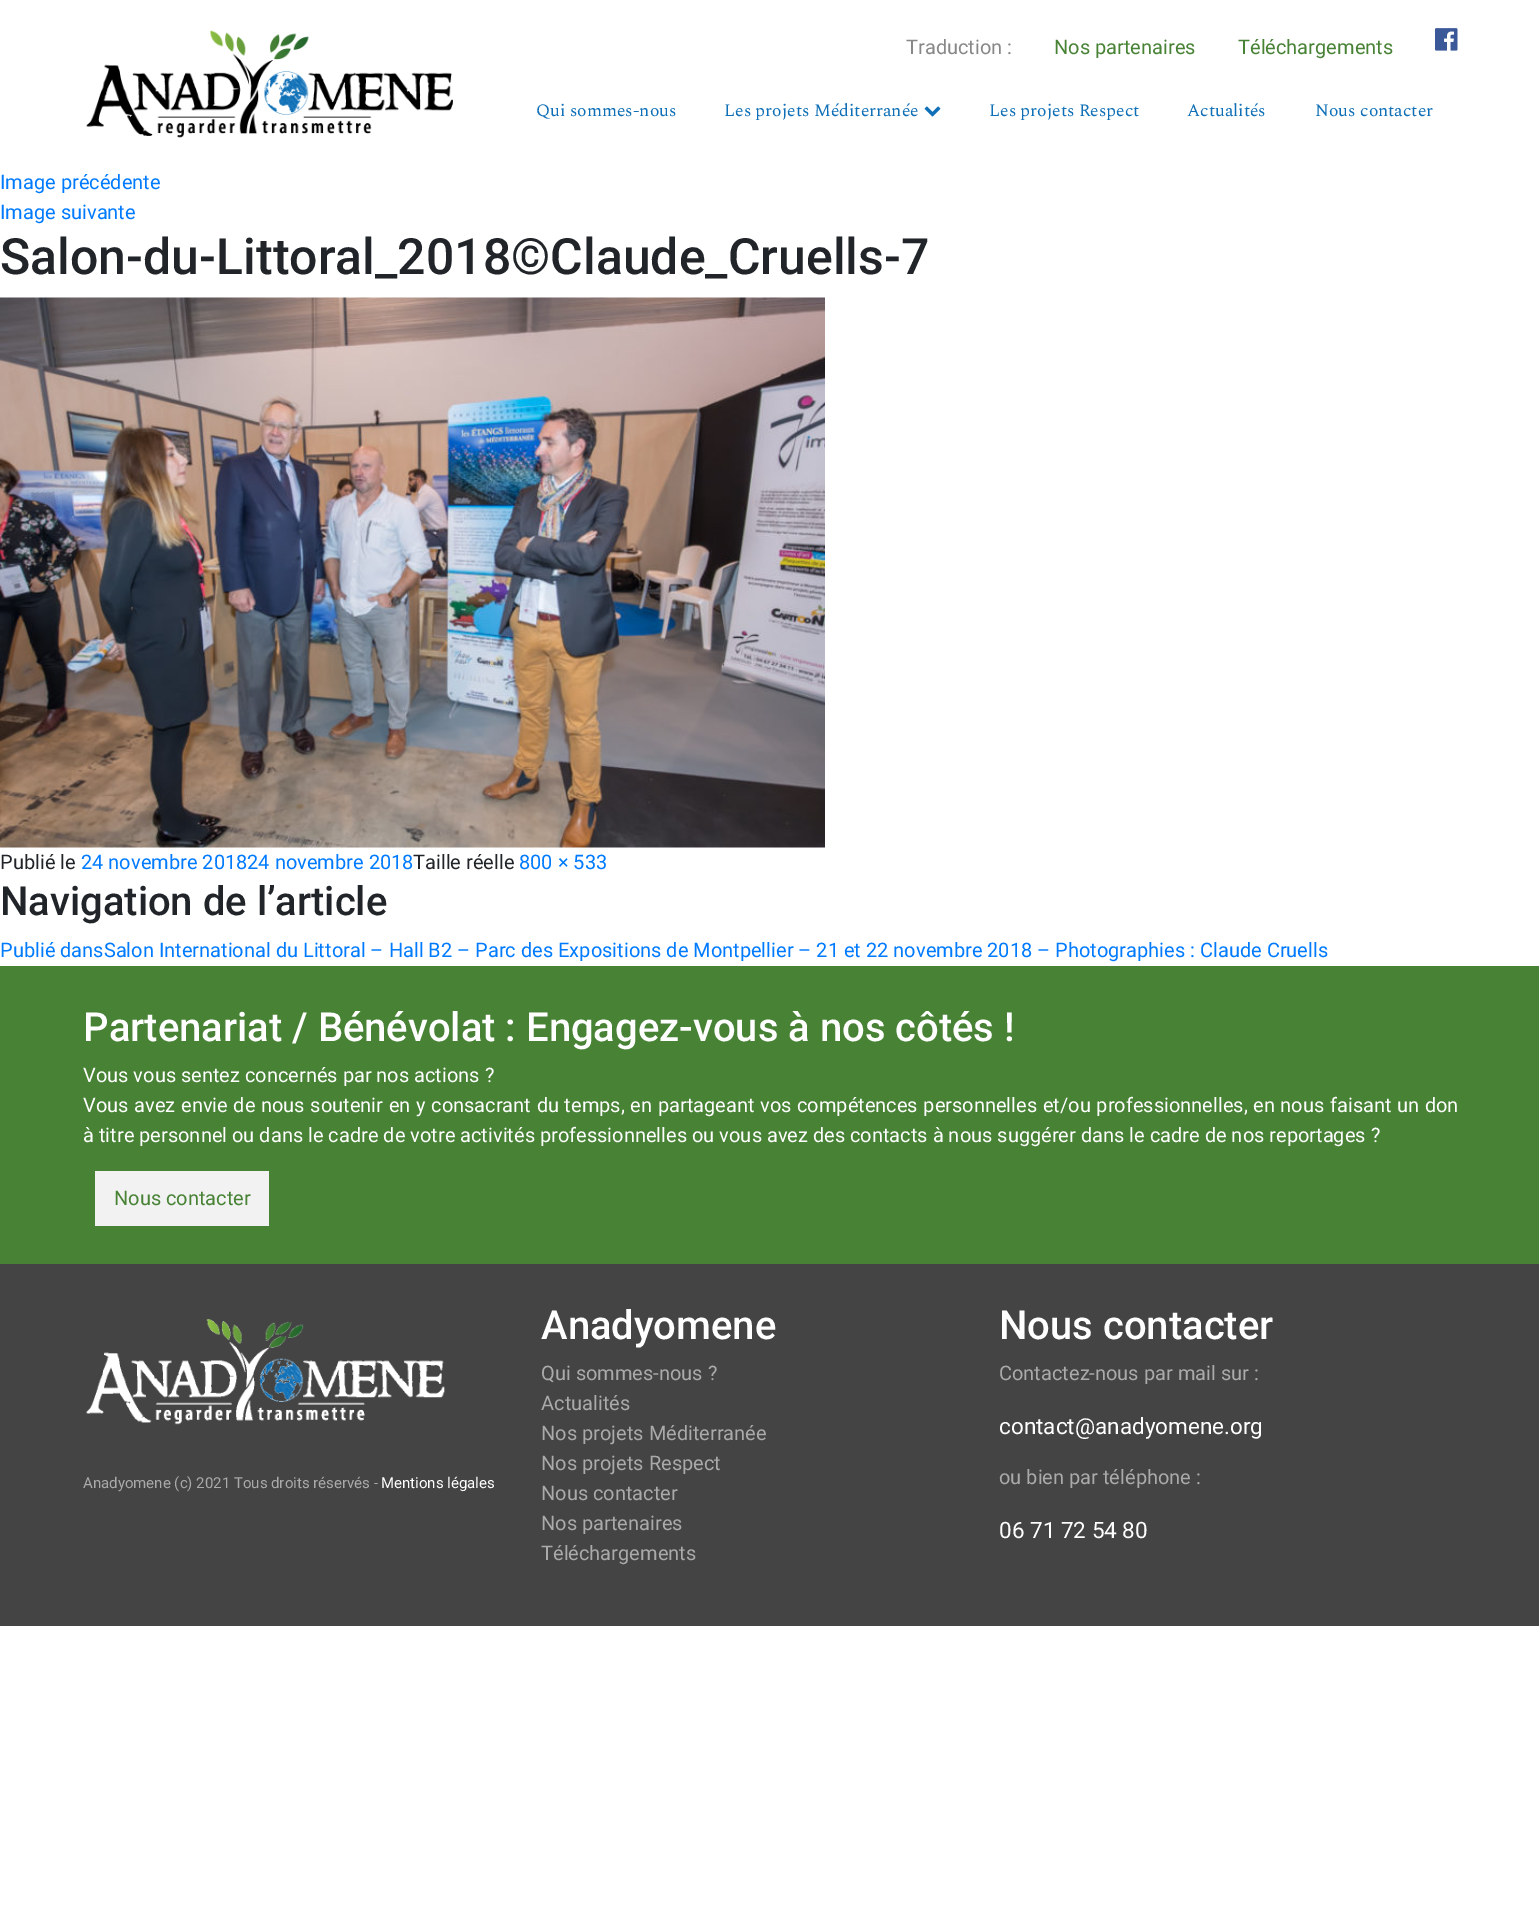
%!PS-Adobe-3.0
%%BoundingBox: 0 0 1539 1915
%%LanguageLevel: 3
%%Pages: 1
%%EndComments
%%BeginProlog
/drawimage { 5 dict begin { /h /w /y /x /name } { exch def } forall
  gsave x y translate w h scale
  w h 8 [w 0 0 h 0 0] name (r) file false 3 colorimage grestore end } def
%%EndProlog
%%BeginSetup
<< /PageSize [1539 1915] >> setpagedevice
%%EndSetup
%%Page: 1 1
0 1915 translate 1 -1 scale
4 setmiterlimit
1 setgray
0 0 1539 1915 rectfill
(images/1.raw) 86 30 367 108 drawimage
(images/2.raw) 1435 28 23 23 drawimage
(images/3.raw) 924 106 17 11 drawimage
(images/4.raw) 0 297 825 551 drawimage
0.278 0.51 0.208 setrgbcolor
0 966 1539 298 rectfill
0.949 setgray
95 1171 174 55 rectfill
0.267 setgray
0 1264 1539 362 rectfill
(images/5.raw) 86 1319 359 106 drawimage
/Roboto-Regular [20 0 0 -20 0 0] selectfont
0.533 setgray
906 54 moveto (Traduction :) show
0.278 0.51 0.208 setrgbcolor
1054 54 moveto (Nos partenaires) show
1238 54 moveto (Téléchargements) show
/Spectral-Regular [17.5 0 0 -17.5 0 0] selectfont
0.059 0.439 0.718 setrgbcolor
536 116 moveto (Qui sommes-nous) show
724 116 moveto (Les projets Méditerranée) show
989 116 moveto (Les projets Respect) show
1187 116 moveto (Actualités) show
1315 116 moveto (Nous contacter) show
/Roboto-Regular [20 0 0 -20 0 0] selectfont
0 0.482 1 setrgbcolor
0 189 moveto (Image précédente) show
0 219 moveto (Image suivante) show
/Roboto-Medium [50 0 0 -50 0 0] selectfont
0.129 0.145 0.161 setrgbcolor
0 274 moveto (Salon-du-Littoral_2018©Claude_Cruells-7) show
/Roboto-Regular [20 0 0 -20 0 0] selectfont
0 869 moveto (Publié le) show
0 0.482 1 setrgbcolor
81 869 moveto (24 novembre 201824 novembre 2018) show
0.129 0.145 0.161 setrgbcolor
413 869 moveto (Taille réelle) show
0 0.482 1 setrgbcolor
519 869 moveto (800 × 533) show
/Roboto-Medium [40 0 0 -40 0 0] selectfont
0.129 0.145 0.161 setrgbcolor
0 915 moveto (Navigation de l’article) show
/Roboto-Regular [20 0 0 -20 0 0] selectfont
0 0.482 1 setrgbcolor
0 957 moveto (Publié dansSalon International du Littoral – Hall B2 – Parc des Expositions de Montpellier – 21 et 22 novembre 2018 – Photographies : Claude Cruells) show
/Roboto-Medium [40 0 0 -40 0 0] selectfont
1 setgray
83 1041 moveto (Partenariat / Bénévolat : Engagez-vous à nos côtés !) show
/Roboto-Regular [20 0 0 -20 0 0] selectfont
83 1082 moveto (Vous vous sentez concernés par nos actions ?) show
83 1112 moveto 0.7 0 32 (Vous avez envie de nous soutenir en y consacrant du temps, en partageant vos compétences personnelles et/ou professionnelles, en nous faisant un don) widthshow
83 1142 moveto (à titre personnel ou dans le cadre de votre activités professionnelles ou vous avez des contacts à nous suggérer dans le cadre de nos reportages ?) show
0.278 0.51 0.208 setrgbcolor
114 1205 moveto (Nous contacter) show
/Roboto-Regular [15 0 0 -15 0 0] selectfont
0.667 setgray
83 1488 moveto (Anadyomene \(c\) 2021 Tous droits réservés -) show
1 setgray
381 1488 moveto (Mentions légales) show
/Roboto-Medium [40 0 0 -40 0 0] selectfont
541 1339 moveto (Anadyomene) show
/Roboto-Regular [20 0 0 -20 0 0] selectfont
0.667 setgray
541 1380 moveto (Qui sommes-nous ?) show
541 1410 moveto (Actualités) show
541 1440 moveto (Nos projets Méditerranée) show
541 1470 moveto (Nos projets Respect) show
541 1500 moveto (Nous contacter) show
541 1530 moveto (Nos partenaires) show
541 1560 moveto (Téléchargements) show
/Roboto-Medium [40 0 0 -40 0 0] selectfont
1 setgray
999 1339 moveto (Nous contacter) show
/Roboto-Regular [20 0 0 -20 0 0] selectfont
0.667 setgray
999 1380 moveto (Contactez-nous par mail sur :) show
/Roboto-Regular [22.5 0 0 -22.5 0 0] selectfont
1 setgray
999 1434 moveto (contact@anadyomene.org) show
/Roboto-Regular [20 0 0 -20 0 0] selectfont
0.667 setgray
999 1484 moveto (ou bien par téléphone :) show
/Roboto-Regular [22.5 0 0 -22.5 0 0] selectfont
1 setgray
999 1538 moveto (06 71 72 54 80) show
showpage
%%EOF
